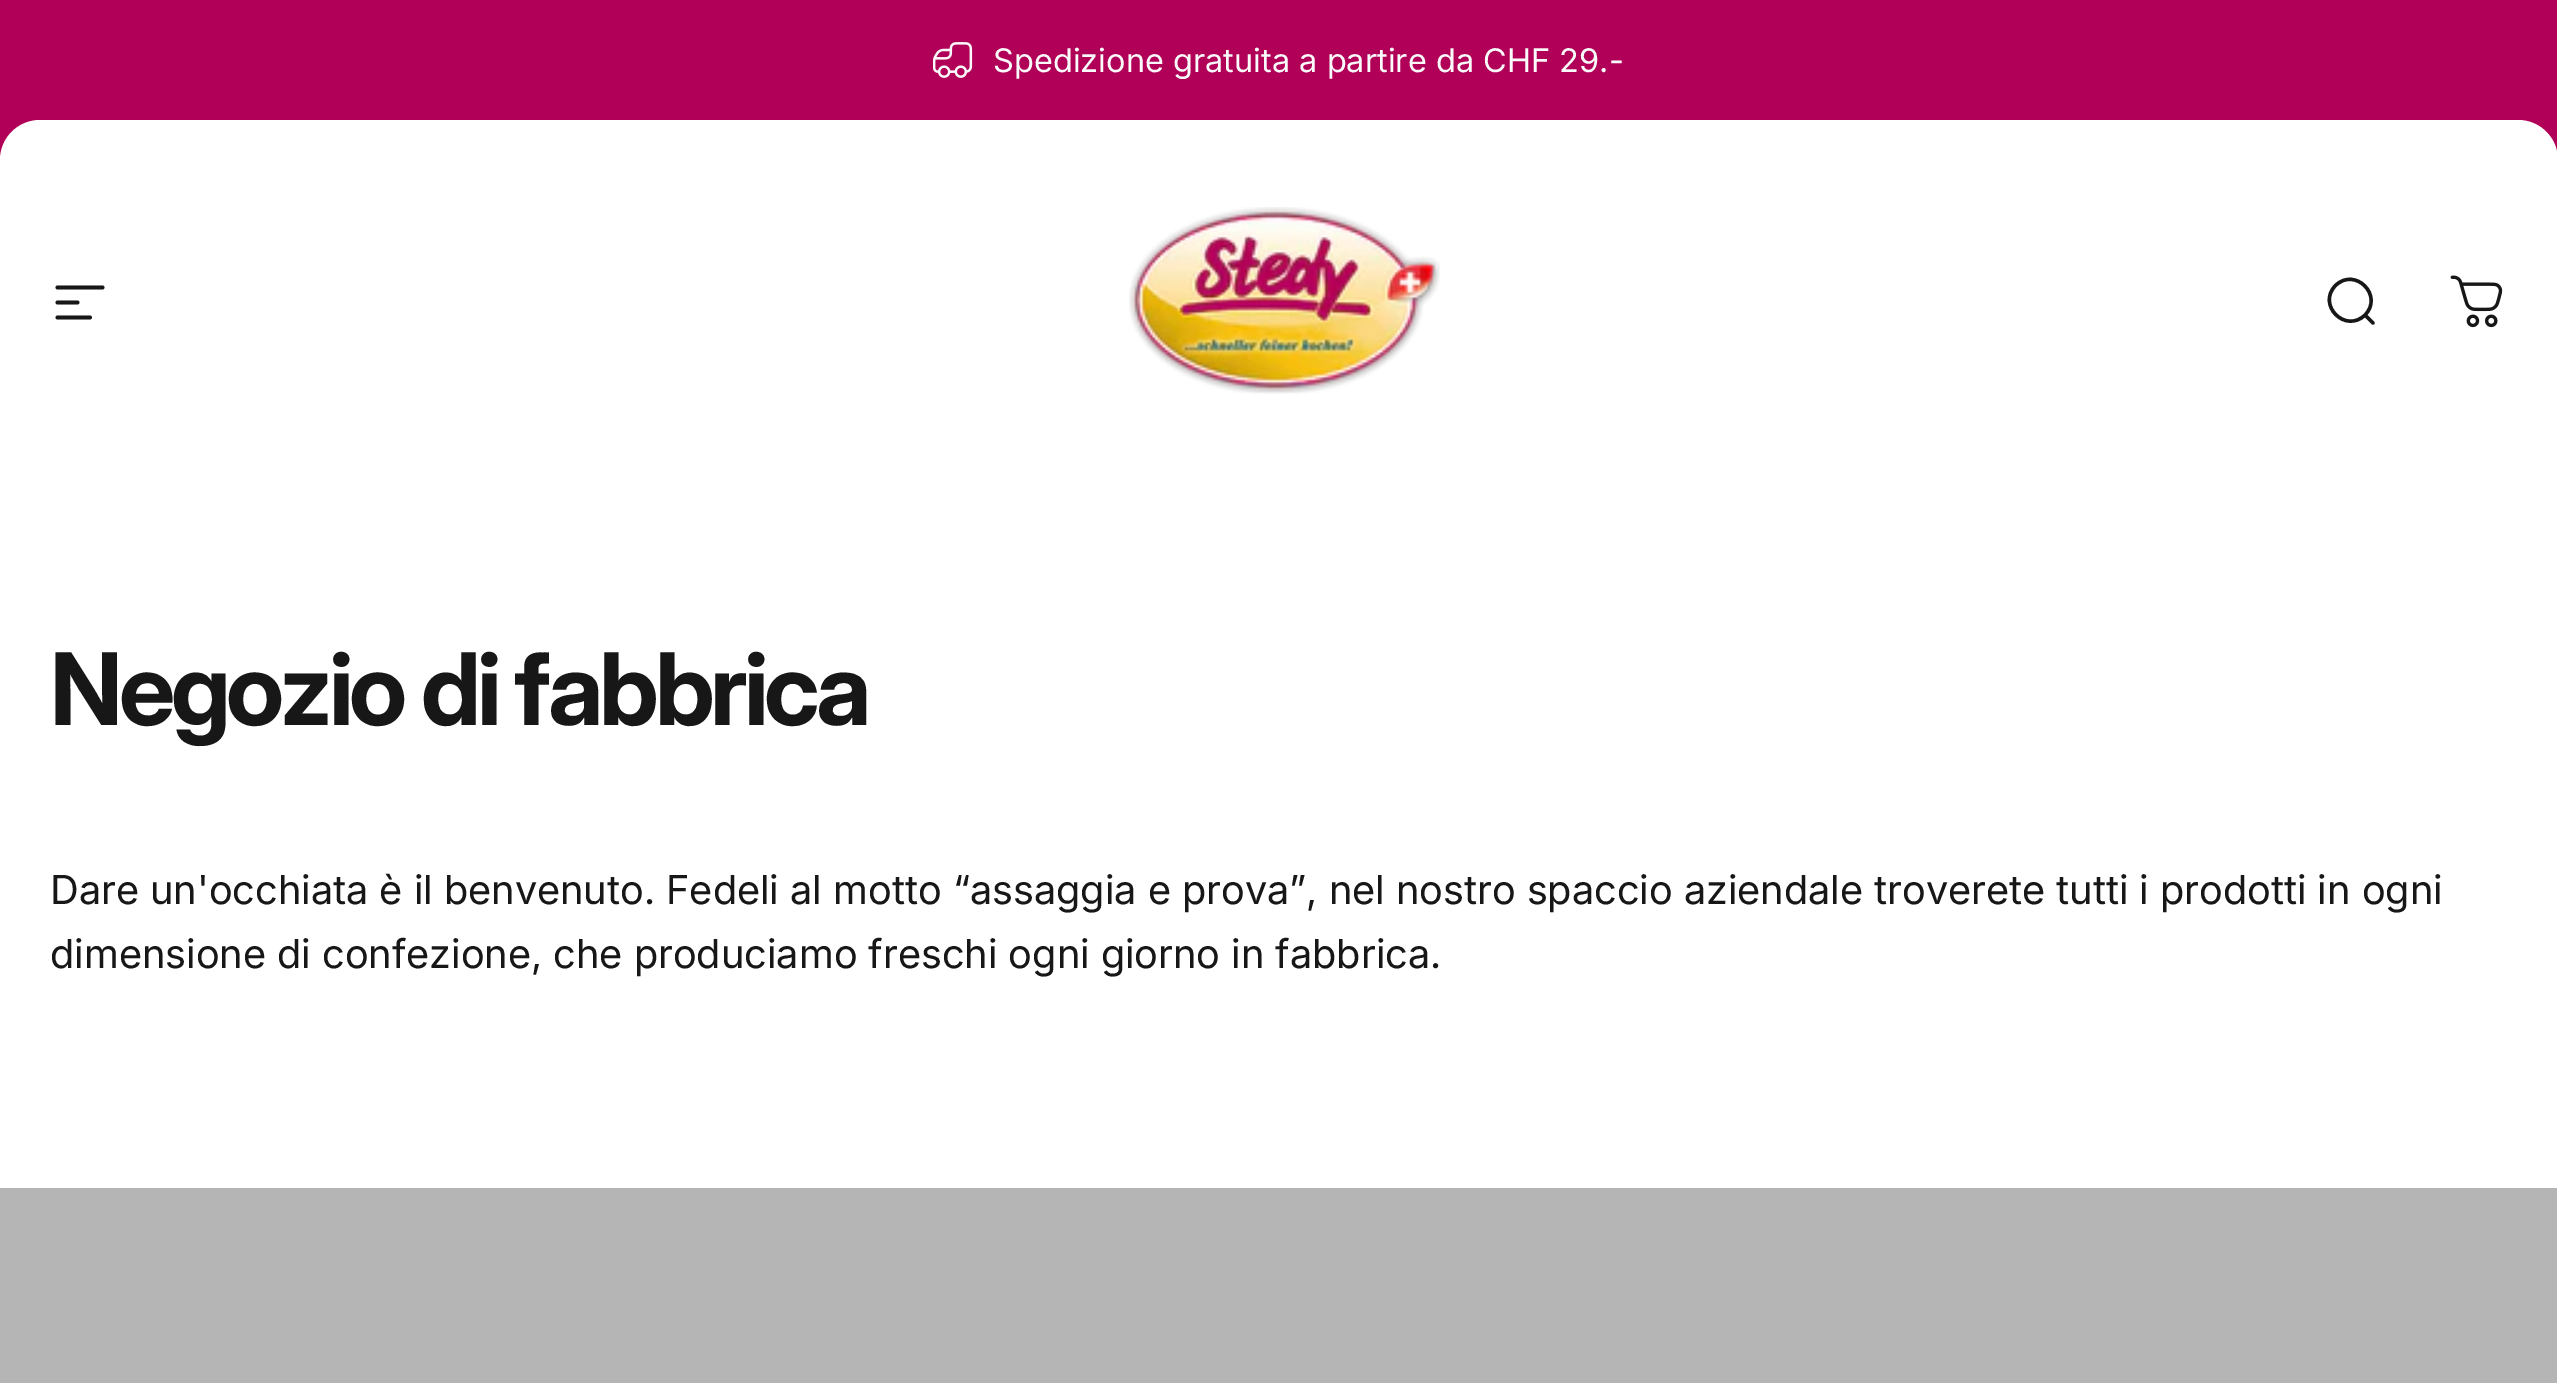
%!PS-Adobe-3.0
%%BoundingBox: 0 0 2557 1383
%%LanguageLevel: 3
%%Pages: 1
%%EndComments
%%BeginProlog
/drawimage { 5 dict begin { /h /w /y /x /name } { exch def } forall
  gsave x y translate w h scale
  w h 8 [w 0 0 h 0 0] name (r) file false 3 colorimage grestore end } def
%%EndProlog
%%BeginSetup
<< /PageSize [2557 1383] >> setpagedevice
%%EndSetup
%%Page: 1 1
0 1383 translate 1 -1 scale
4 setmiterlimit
1 setgray
0 0 2557 1383 rectfill
0.694 0 0.345 setrgbcolor
0 0 2557 40 rectfill
newpath 40 0 moveto 2518 0 lineto 2540 0 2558 18 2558 40 curveto 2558 160 lineto 0 160 lineto 0 40 lineto 0 18 18 0 40 0 curveto closepath fill
(images/1.raw) 933 42 40 36 drawimage
1 setgray
newpath 40 120 moveto 2518 120 lineto 2540 120 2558 138 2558 160 curveto 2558 485 lineto 0 485 lineto 0 160 lineto 0 138 18 120 40 120 curveto closepath fill
0.09 setgray
3.8 setlinewidth
1 setlinecap
newpath 57.5 287.5 moveto 102.5 287.5 lineto 57.5 302.5 moveto 77.5 302.5 lineto 57.5 317.5 moveto 90 317.5 lineto stroke
(images/2.raw) 1129 207 311 187 drawimage
3.4 setlinewidth
newpath 2373 323 moveto 2365 315 lineto 2365 315 moveto 2384 295.5 2355 266.5 2335.5 285.5 curveto 2316.5 305 2345.5 334 2365 315 curveto closepath stroke
(images/3.raw) 2450 275 53 53 drawimage
0.71 setgray
0 1188 2557 195 rectfill
/Inter-Regular [32.5 0 0 -32.5 0 0] selectfont
0.98 setgray
993 72 moveto (Spedizione gratuita a partire da CHF 29.-) show
/Inter-Bold [100 0 0 -100 0 0] selectfont
0.09 setgray
50 725 moveto -4 0 (Negozio di fabbrica) ashow
/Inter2-Regular [40 0 0 -40 0 0] selectfont
50 904 moveto (Dare un'occhiata è il benvenuto. Fedeli al motto “assaggia e prova”, nel nostro spaccio aziendale troverete tutti i prodotti in ogni) show
50 968 moveto (dimensione di confezione, che produciamo freschi ogni giorno in fabbrica.) show
showpage
%%EOF
